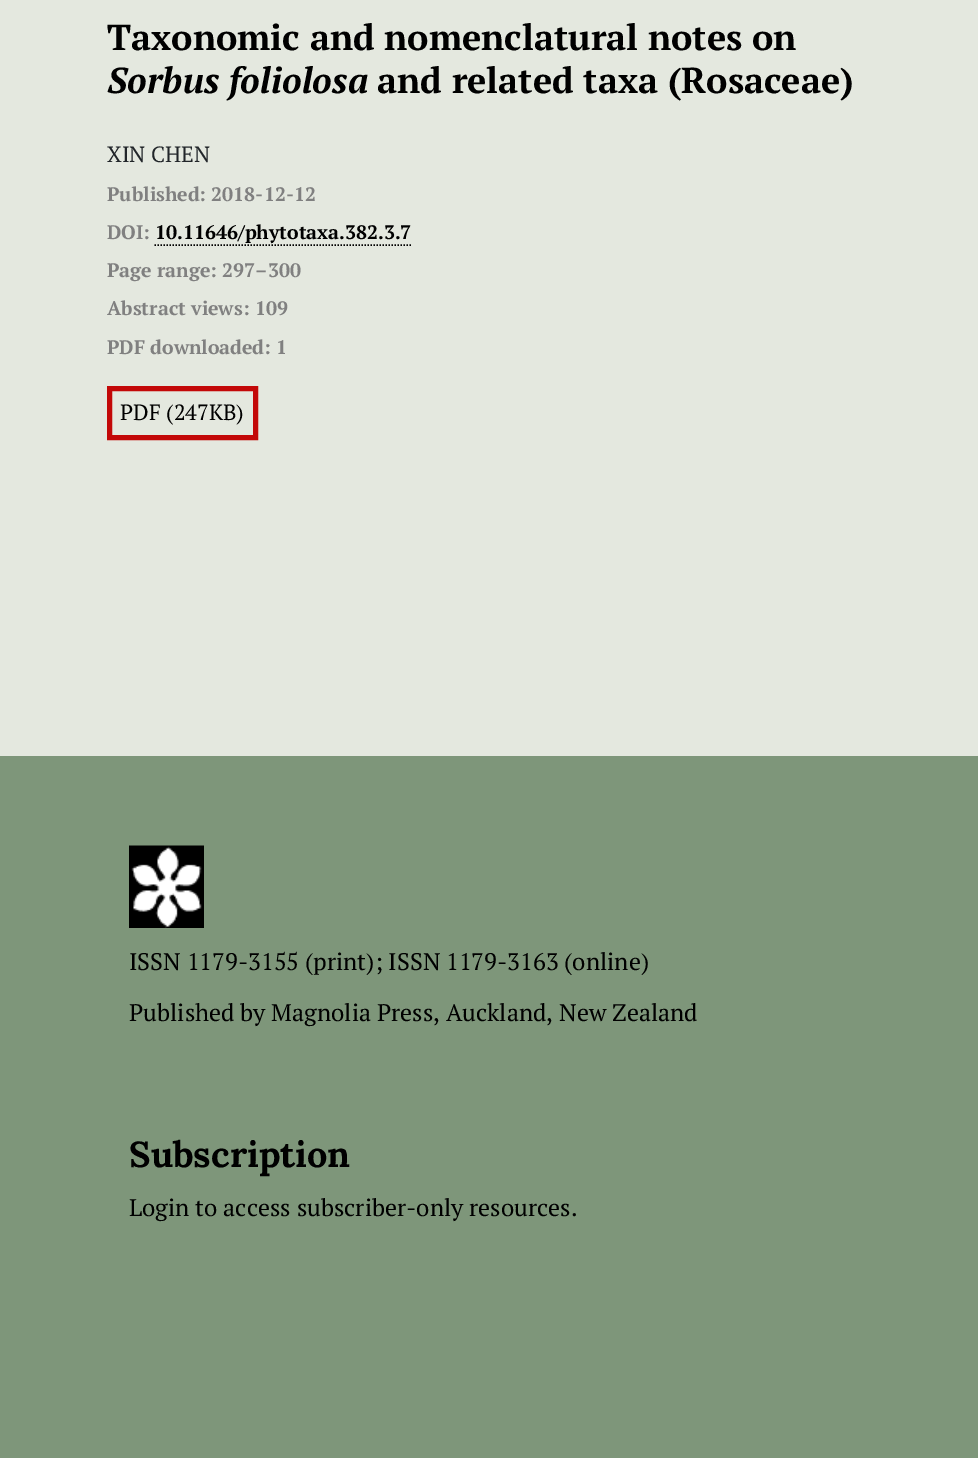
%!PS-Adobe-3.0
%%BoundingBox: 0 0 978 1458
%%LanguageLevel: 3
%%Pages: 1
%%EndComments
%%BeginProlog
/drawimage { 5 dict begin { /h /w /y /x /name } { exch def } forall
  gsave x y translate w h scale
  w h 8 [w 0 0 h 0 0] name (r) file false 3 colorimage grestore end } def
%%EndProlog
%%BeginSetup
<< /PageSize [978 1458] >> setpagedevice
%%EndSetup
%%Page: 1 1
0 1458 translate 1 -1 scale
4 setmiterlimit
0.894 0.91 0.875 setrgbcolor
0 0 978 1458 rectfill
0 setgray
1.5 setlinewidth
[1.5 1.5] 0 setdash
newpath 154.5 245 moveto 411 245 lineto stroke
0.765 0.031 0.031 setrgbcolor
5 setlinewidth
[] 0 setdash
109.5 388.5 146 49 rectstroke
0.494 0.588 0.478 setrgbcolor
0 756 978 702 rectfill
(images/1.raw) 129 845 75 83 drawimage
/PTSerif-Bold [36 0 0 -36 0 0] selectfont
0 setgray
107 50 moveto (Taxonomic and nomenclatural notes on) show
/PTSerif-BoldItalic [36 0 0 -36 0 0] selectfont
107 93 moveto (Sorbus foliolosa) show
/PTSerif-Bold [36 0 0 -36 0 0] selectfont
377 93 moveto (and related taxa \(Rosaceae\)) show
/PTSerif-Regular [22 0 0 -22 0 0] selectfont
0.129 0.145 0.161 setrgbcolor
107 162 moveto (XIN CHEN) show
/PTSerif-Bold [19.5 0 0 -19.5 0 0] selectfont
0.502 setgray
107 201 moveto (Published: 2018-12-12) show
107 239 moveto (DOI:) show
0 setgray
155 239 moveto (10.11646/phytotaxa.382.3.7) show
0.502 setgray
107 277 moveto (Page range: 297–300) show
107 315 moveto (Abstract views: 109) show
107 354 moveto (PDF downloaded: 1) show
/PTSerif-Regular [22 0 0 -22 0 0] selectfont
0 setgray
120 420 moveto (PDF \(247KB\)) show
/PTSerif-Regular [24 0 0 -24 0 0] selectfont
129 970 moveto (ISSN 1179-3155 \(print\); ISSN 1179-3163 \(online\)) show
129 1021 moveto (Published by Magnolia Press, Auckland, New Zealand) show
/Lora-Bold [36 0 0 -36 0 0] selectfont
129 1167 moveto (Subscription) show
/PTSerif-Regular [24 0 0 -24 0 0] selectfont
129 1216 moveto (Login to access subscriber-only resources.) show
showpage
%%EOF
